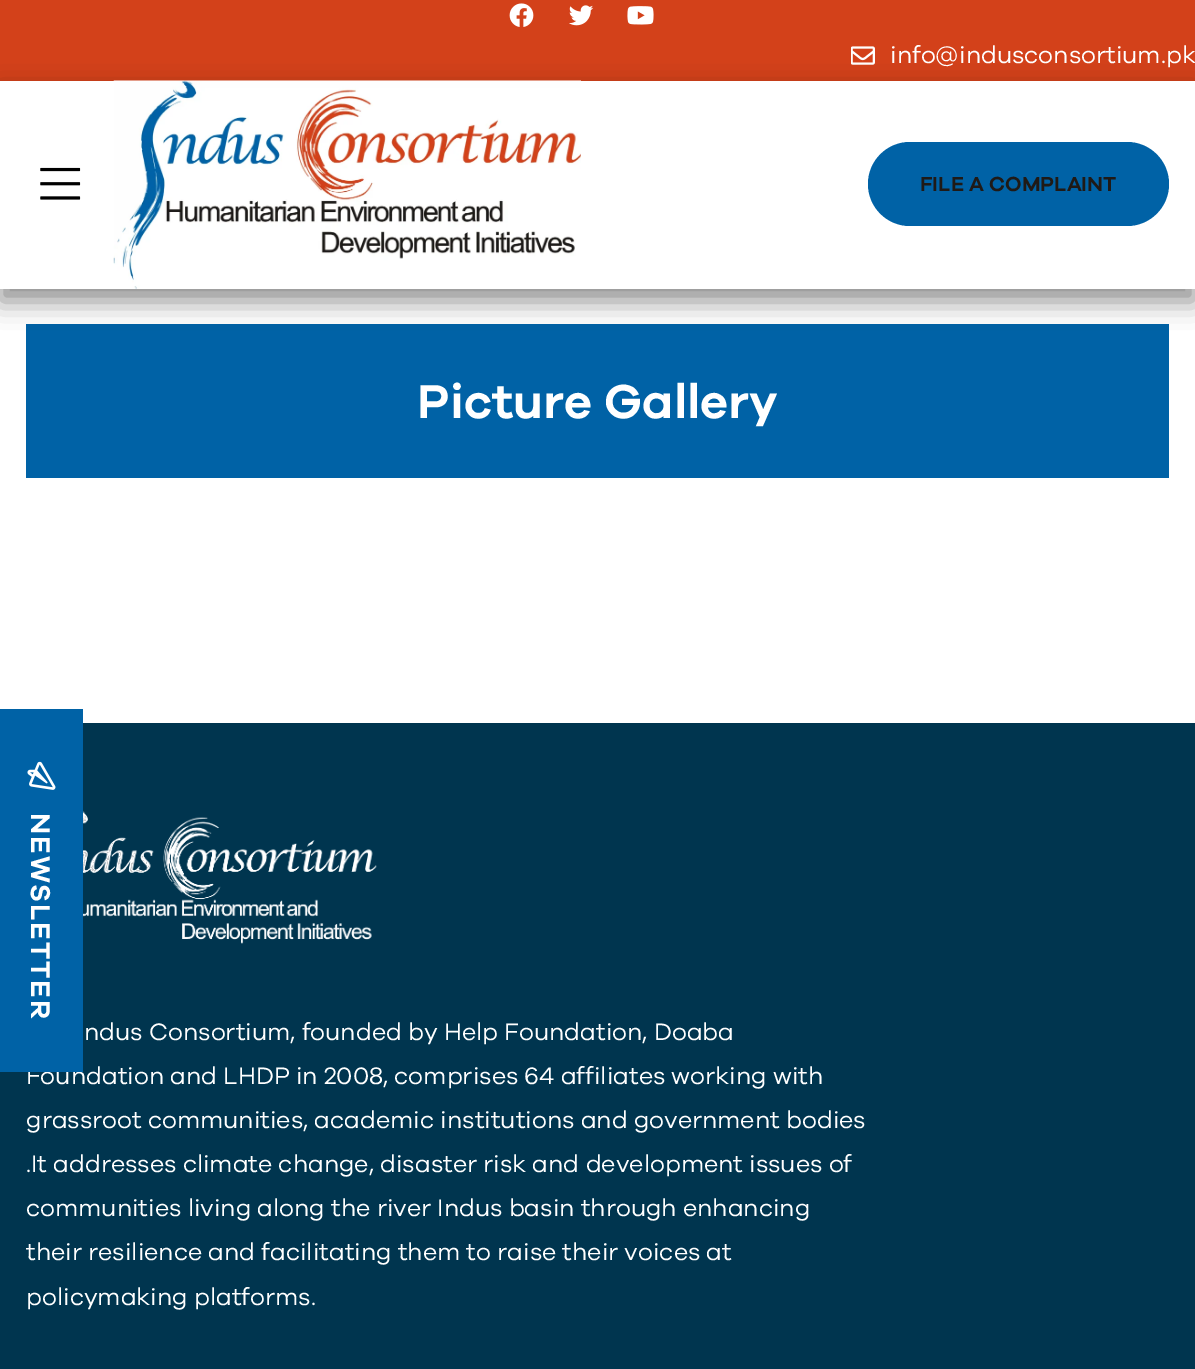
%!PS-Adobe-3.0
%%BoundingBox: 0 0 1195 1369
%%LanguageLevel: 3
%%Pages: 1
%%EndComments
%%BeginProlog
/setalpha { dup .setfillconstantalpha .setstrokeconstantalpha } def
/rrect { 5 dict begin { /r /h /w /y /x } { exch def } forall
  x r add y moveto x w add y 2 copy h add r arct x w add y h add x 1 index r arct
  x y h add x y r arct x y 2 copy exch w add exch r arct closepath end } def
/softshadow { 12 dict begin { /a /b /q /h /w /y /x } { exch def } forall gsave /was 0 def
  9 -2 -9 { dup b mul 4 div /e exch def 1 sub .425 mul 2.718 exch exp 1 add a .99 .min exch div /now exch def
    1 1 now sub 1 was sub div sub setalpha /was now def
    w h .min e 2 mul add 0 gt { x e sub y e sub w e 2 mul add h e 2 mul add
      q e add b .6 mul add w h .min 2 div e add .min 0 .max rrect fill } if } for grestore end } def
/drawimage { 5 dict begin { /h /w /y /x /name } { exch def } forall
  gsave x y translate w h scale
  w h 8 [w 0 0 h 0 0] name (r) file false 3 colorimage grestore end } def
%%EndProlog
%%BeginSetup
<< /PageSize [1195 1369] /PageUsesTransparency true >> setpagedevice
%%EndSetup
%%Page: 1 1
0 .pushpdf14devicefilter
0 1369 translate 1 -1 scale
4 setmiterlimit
1 setgray
0 0 1195 1369 rectfill
0.827 0.255 0.102 setrgbcolor
0 0 1195 81 rectfill
(images/1.raw) 509 3 25 24 drawimage
(images/2.raw) 569 5 25 21 drawimage
(images/3.raw) 627 6 27 19 drawimage
(images/4.raw) 851 46 24 19 drawimage
0 0.384 0.651 setrgbcolor
26 324 1143 154 rectfill
0 setgray
0 93 1195 208 0 13 0.44 softshadow
1 setgray
0 81 1195 208 rectfill
(images/5.raw) 40 167 41 33 drawimage
(images/6.raw) 113 80 468 209 drawimage
0 0.384 0.651 setrgbcolor
868 142 301 84 42 rrect fill
0 0.208 0.31 setrgbcolor
0 723 1195 646 rectfill
(images/8.raw) 83 811 294 133 drawimage
/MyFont-Medium [24.5 0 0 -24.5 0 0] selectfont
1 setgray
890 63 moveto (info@indusconsortium.pk) show
/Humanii-Medium [21 0 0 -21 0 0] selectfont
0.122 0.102 0.09 setrgbcolor
920 191 moveto (FILE A COMPLAINT) show
/Humanii-Medium [49 0 0 -49 0 0] selectfont
1 setgray
417 418 moveto (Picture Gallery) show
/MyFont-Medium [24.5 0 0 -24.5 0 0] selectfont
84 1040 moveto (ndus Consortium, founded by Help Foundation, Doaba) show
26 1084 moveto (Foundation and LHDP in 2008, comprises 64 affiliates working with) show
0 0.384 0.651 setrgbcolor
0 709 83 363 rectfill
/Humanii-Medium [28 0 0 -28 0 0] selectfont
1 setgray
gsave 31 813 translate 90 rotate 0 0 moveto 1.75 0 (NEWSLETTER) ashow grestore
(images/7.raw) 27 761 29 29 drawimage
/MyFont-Medium [24.5 0 0 -24.5 0 0] selectfont
26 1128 moveto (grassroot communities, academic institutions and government bodies) show
26 1172 moveto (.It addresses climate change, disaster risk and development issues of) show
26 1216 moveto (communities living along the river Indus basin through enhancing) show
26 1260 moveto (their resilience and facilitating them to raise their voices at) show
26 1305 moveto (policymaking platforms.) show
.poppdf14devicefilter showpage
%%EOF
